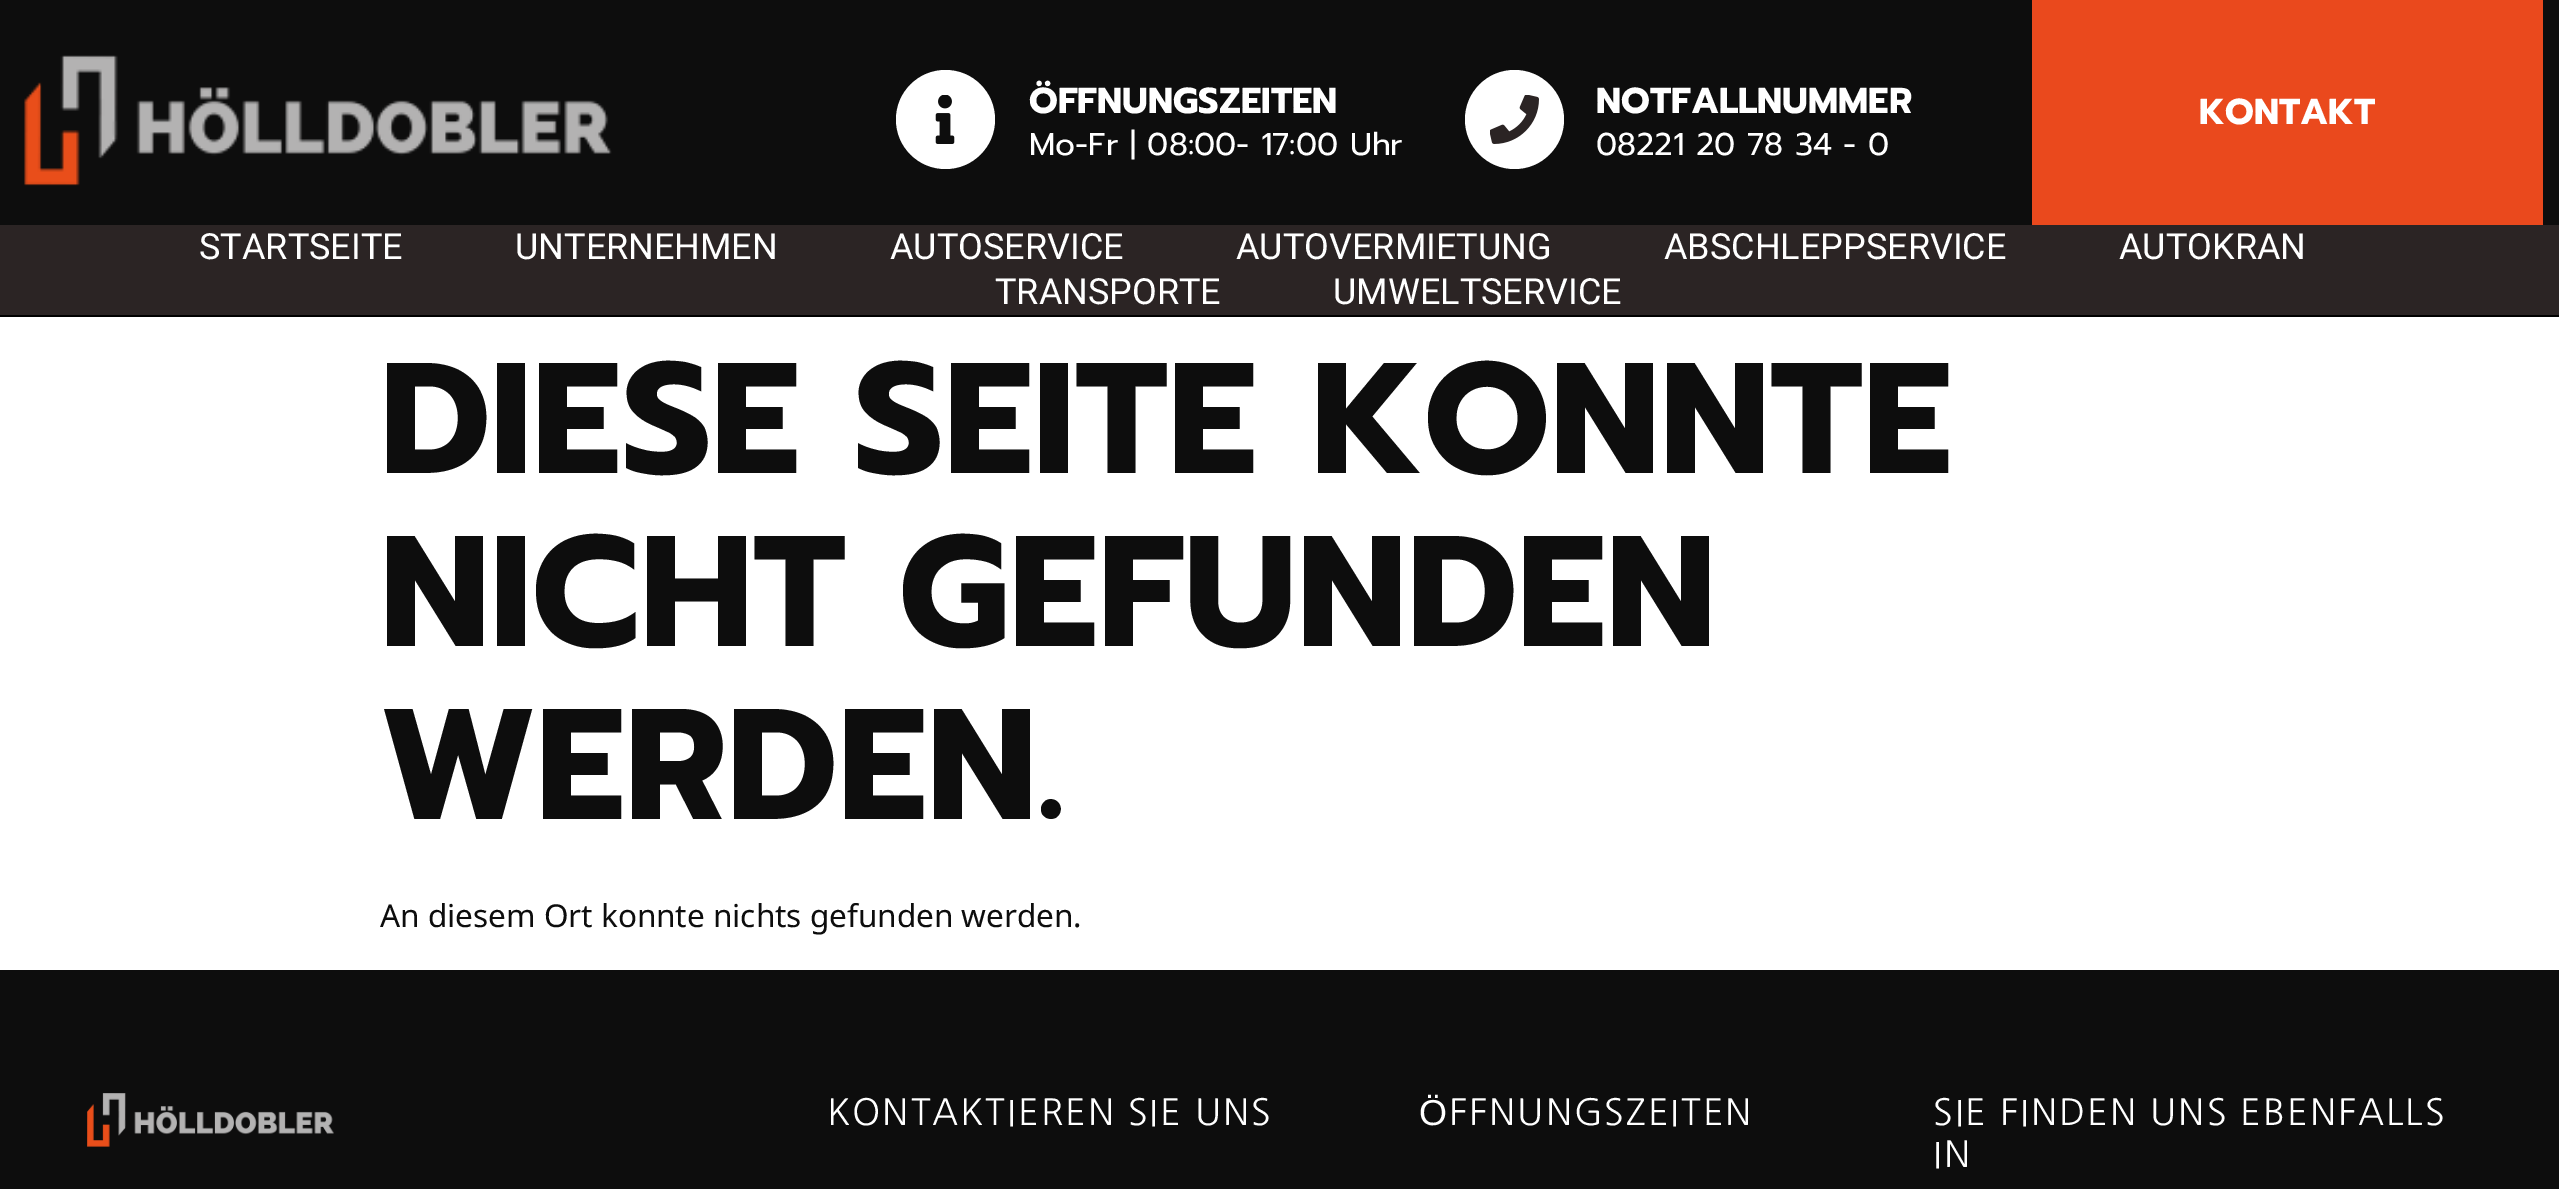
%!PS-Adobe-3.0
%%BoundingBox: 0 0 2559 1189
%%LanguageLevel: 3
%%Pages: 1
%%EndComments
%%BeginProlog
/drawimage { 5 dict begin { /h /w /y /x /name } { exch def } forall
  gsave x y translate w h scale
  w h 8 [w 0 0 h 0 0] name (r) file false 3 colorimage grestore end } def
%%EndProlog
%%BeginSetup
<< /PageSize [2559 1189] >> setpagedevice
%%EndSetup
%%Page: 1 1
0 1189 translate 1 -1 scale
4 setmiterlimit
1 setgray
0 0 2559 1189 rectfill
0.051 setgray
0 0 2559 225 rectfill
(images/1.raw) 24 55 588 131 drawimage
1 setgray
newpath 945.5 119.5 49.5 0 360 arc closepath fill
(images/2.raw) 935 95 20 49 drawimage
newpath 1514.5 119.5 49.5 0 360 arc closepath fill
(images/3.raw) 1490 95 49 49 drawimage
0.918 0.286 0.114 setrgbcolor
2032 0 511 225 rectfill
0.169 0.141 0.141 setrgbcolor
0 225 2559 90 rectfill
0 setgray
0 315 2559 2 rectfill
0.051 setgray
0 970 2559 219 rectfill
(images/4.raw) 87 1093 247 54 drawimage
/Prompt-Bold [36 0 0 -36 0 0] selectfont
1 setgray
1029 113 moveto (ÖFFNUNGSZEITEN) show
/Prompt-Regular [31.5 0 0 -31.5 0 0] selectfont
1029 155 moveto (Mo-Fr | 08:00- 17:00 Uhr) show
/Prompt-Bold [36 0 0 -36 0 0] selectfont
1596 113 moveto (NOTFALLNUMMER) show
/Prompt-Regular [31.5 0 0 -31.5 0 0] selectfont
1596 155 moveto (08221 20 78 34 - 0) show
/Prompt-Bold [36 0 0 -36 0 0] selectfont
2199 124 moveto (KONTAKT) show
/Roboto-Regular [36 0 0 -36 0 0] selectfont
199 259 moveto (STARTSEITE) show
515 259 moveto (UNTERNEHMEN) show
890 259 moveto (AUTOSERVICE) show
1236 259 moveto (AUTOVERMIETUNG) show
1664 259 moveto (ABSCHLEPPSERVICE) show
2119 259 moveto (AUTOKRAN) show
995 304 moveto (TRANSPORTE) show
1333 304 moveto (UMWELTSERVICE) show
/Prompt-Bold [157.5 0 0 -157.5 0 0] selectfont
0.051 setgray
380 473 moveto (DIESE SEITE KONNTE) show
380 646 moveto (NICHT GEFUNDEN) show
380 819 moveto (WERDEN.) show
/NotoSans-Regular [31.5 0 0 -31.5 0 0] selectfont
380 927 moveto (An diesem Ort konnte nichts gefunden werden.) show
/NanumGothic-Regular [36 0 0 -36 0 0] selectfont
1 setgray
827 1125 moveto 2 0 (KONTAKTIEREN SIE UNS) ashow
/LiberationSans-Regular [36 0 0 -36 0 0] selectfont
1419 1125 moveto 2 0 (Ö) ashow
/NanumGothic-Regular [36 0 0 -36 0 0] selectfont
1449 1125 moveto 2 0 (FFNUNGSZEITEN) ashow
1933 1125 moveto 2 0 (SIE FINDEN UNS EBENFALLS) ashow
1933 1167 moveto 2 0 (IN) ashow
showpage
%%EOF
